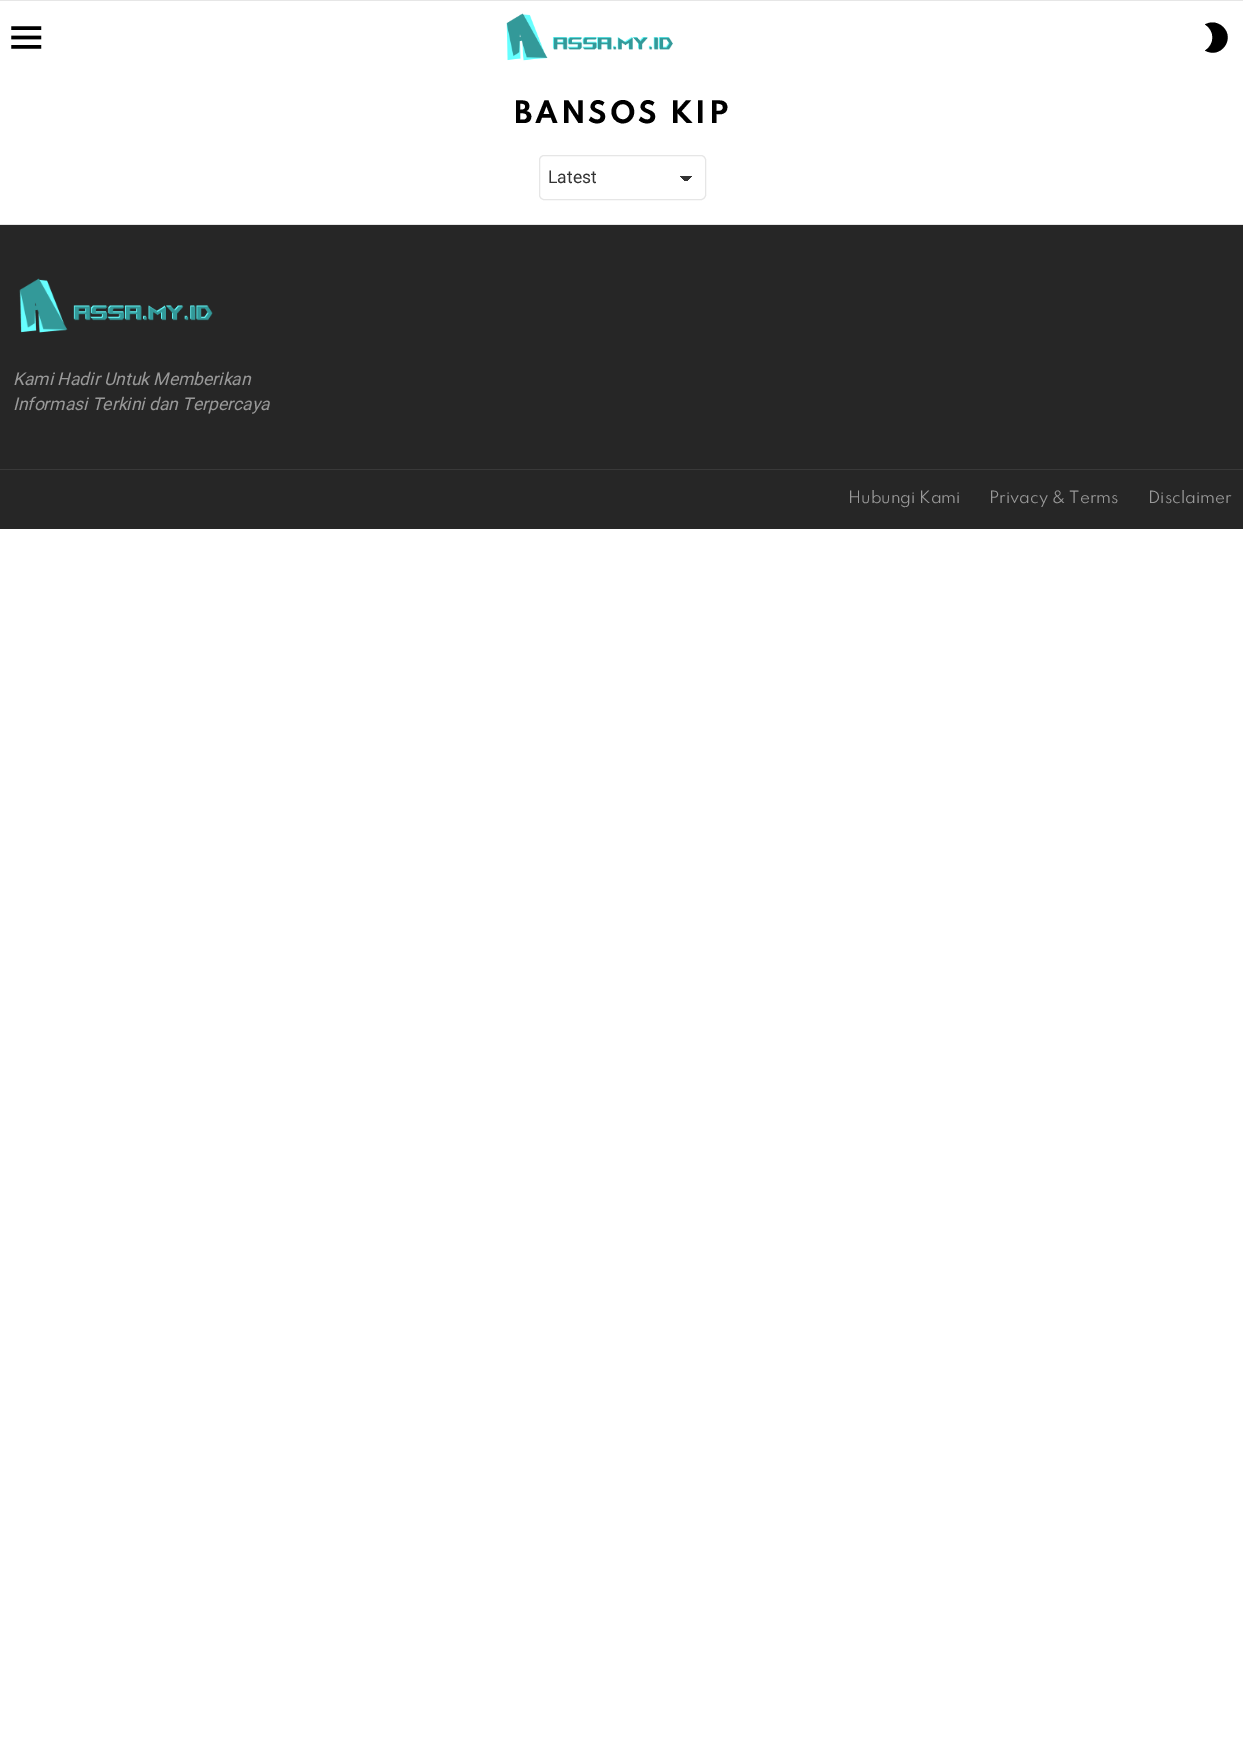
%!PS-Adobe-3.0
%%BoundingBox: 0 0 1243 1756
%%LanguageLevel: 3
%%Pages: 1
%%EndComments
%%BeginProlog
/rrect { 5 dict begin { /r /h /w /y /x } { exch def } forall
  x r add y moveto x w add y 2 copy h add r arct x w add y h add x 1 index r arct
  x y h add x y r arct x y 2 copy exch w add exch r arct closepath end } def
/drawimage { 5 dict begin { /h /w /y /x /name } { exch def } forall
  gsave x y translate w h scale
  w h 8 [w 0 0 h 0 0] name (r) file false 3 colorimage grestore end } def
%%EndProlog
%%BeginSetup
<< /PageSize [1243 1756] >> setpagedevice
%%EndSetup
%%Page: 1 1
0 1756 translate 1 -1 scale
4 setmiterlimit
1 setgray
0 0 1243 1756 rectfill
0.902 setgray
0 0 1243 1 rectfill
(images/1.raw) 11 26 31 23 drawimage
(images/2.raw) 506 13 167 48 drawimage
0 setgray
newpath 1212.5 22.5 moveto 1210 22.5 1207.5 23 1205 24.5 curveto 1215 30.5 1215 44.5 1205 50.5 curveto 1220.5 59.5 1236 38.5 1222.5 26.5 curveto 1220 24 1216 22.5 1212.5 22.5 curveto closepath fill
gsave newpath 686 176 moveto 693 176 lineto 693 181 lineto 686 181 lineto closepath clip newpath
<< /ShadingType 2 /ColorSpace /DeviceRGB /Coords [687 176 692 182] /Extend [true true] /Function << /FunctionType 3 /Domain [0 1] /Functions [<< /FunctionType 2 /Domain [0 1] /C0 [0.2 0.2 0.2] /C1 [0.2 0.2 0.2] /N 1 >> << /FunctionType 2 /Domain [0 1] /C0 [1 1 1] /C1 [1 1 1] /N 1 >>] /Bounds [0.5] /Encode [0 1 0 1] >> >> shfill grestore
gsave newpath 680 176 moveto 686 176 lineto 686 181 lineto 680 181 lineto closepath clip newpath
<< /ShadingType 2 /ColorSpace /DeviceRGB /Coords [680 182 686 176] /Extend [true true] /Function << /FunctionType 3 /Domain [0 1] /Functions [<< /FunctionType 2 /Domain [0 1] /C0 [1 1 1] /C1 [1 1 1] /N 1 >> << /FunctionType 2 /Domain [0 1] /C0 [0.2 0.2 0.2] /C1 [0.2 0.2 0.2] /N 1 >>] /Bounds [0.5] /Encode [0 1 0 1] >> >> shfill grestore
0.902 setgray
539.5 155.5 166 44 4.5 rrect stroke
0 224 1243 1 rectfill
0.149 setgray
0 225 1243 244 rectfill
(images/3.raw) 19 278 194 55 drawimage
0.224 setgray
0 469 1243 1 rectfill
0.149 setgray
0 470 1243 59 rectfill
/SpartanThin-Bold [27.5 0 0 -27.5 0 0] selectfont
0 setgray
514 123 moveto 2.75 0 (BANSOS KIP) ashow
/Roboto-Regular [17.5 0 0 -17.5 0 0] selectfont
0.2 setgray
548 183 moveto (Latest) show
/Roboto-Italic [17.5 0 0 -17.5 0 0] selectfont
0.6 setgray
13 385 moveto (Kami Hadir Untuk Memberikan) show
13 410 moveto (Informasi Terkini dan Terpercaya) show
/SpartanThin-Regular [15 0 0 -15 0 0] selectfont
848 503 moveto (Hubungi Kami) show
989 503 moveto (Privacy & Terms) show
1148 503 moveto (Disclaimer) show
showpage
%%EOF
